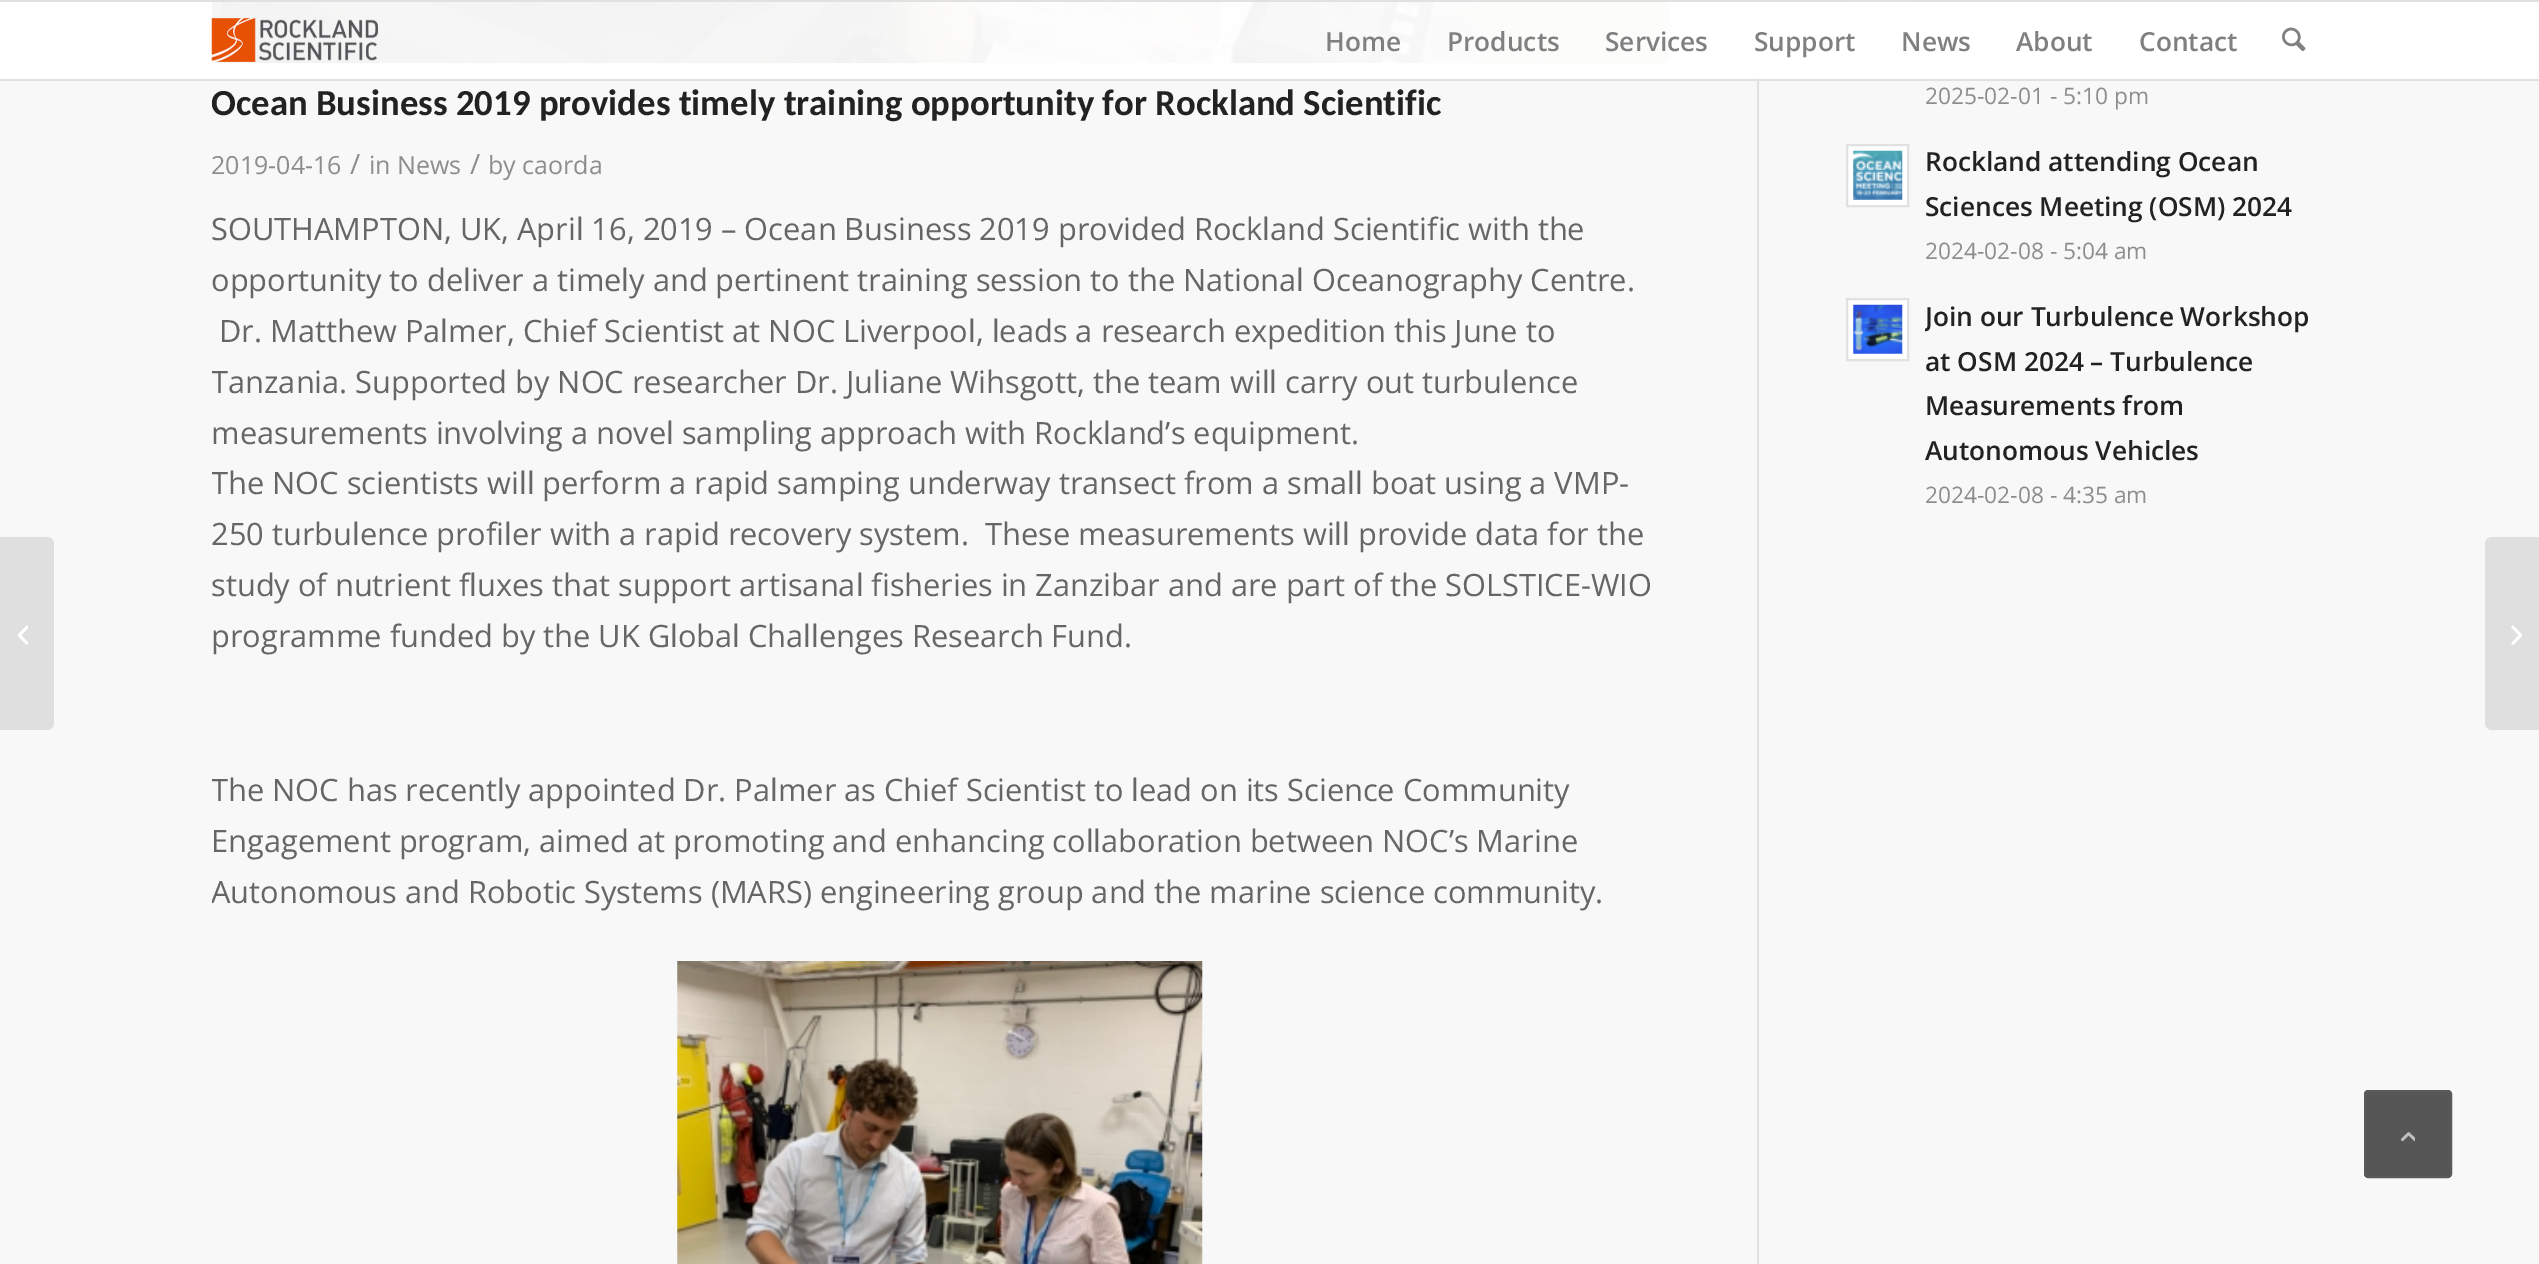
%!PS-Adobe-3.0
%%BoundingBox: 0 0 2539 1264
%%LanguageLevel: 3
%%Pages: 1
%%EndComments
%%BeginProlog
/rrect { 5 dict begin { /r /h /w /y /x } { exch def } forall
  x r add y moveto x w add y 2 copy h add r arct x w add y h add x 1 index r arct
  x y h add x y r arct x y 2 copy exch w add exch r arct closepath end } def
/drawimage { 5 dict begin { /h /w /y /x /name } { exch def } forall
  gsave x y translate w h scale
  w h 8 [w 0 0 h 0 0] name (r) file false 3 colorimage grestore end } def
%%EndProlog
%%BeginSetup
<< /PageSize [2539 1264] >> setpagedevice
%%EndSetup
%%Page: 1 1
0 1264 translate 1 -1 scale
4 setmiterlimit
0.973 setgray
0 0 2539 1264 rectfill
1 setgray
0 2 2539 77 rectfill
0.996 setgray
1757 0 2 81 rectfill
2 setlinewidth
1847 -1 61 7 rectstroke
0.882 setgray
0 0 2539 2 rectfill
0 79 2539 2 rectfill
(images/4.raw) 211 2 1459 62 drawimage
(images/1.raw) 211 18 167 44 drawimage
(images/2.raw) 2282 27 24 25 drawimage
0.875 setgray
newpath 0 537 moveto 47 537 lineto 51 537 54 540 54 544 curveto 54 723 lineto 54 727 51 730 47 730 curveto 0 730 lineto closepath fill
(images/3.raw) 18 625 10 20 drawimage
0.882 setgray
1757 81 2 1183 rectfill
(images/5.raw) 677 961 526 303 drawimage
1 setgray
newpath 1847 145 moveto 1908 145 lineto 1908 206 lineto 1847 206 lineto closepath gsave fill grestore
0.882 setgray
stroke
(images/6.raw) 1853 150 50 50 drawimage
1 setgray
newpath 1847 299 moveto 1908 299 lineto 1908 360 lineto 1847 360 lineto closepath gsave fill grestore
0.882 setgray
stroke
(images/7.raw) 1853 304 50 50 drawimage
0.875 setgray
newpath 2492 537 moveto 2539 537 lineto 2539 730 lineto 2492 730 lineto 2488 730 2485 727 2485 723 curveto 2485 544 lineto 2485 540 2488 537 2492 537 curveto closepath fill
(images/8.raw) 2511 625 11 20 drawimage
0.337 setgray
2365 1091 86 86 3 rrect gsave fill grestore
0.353 setgray
stroke
(images/9.raw) 2401 1132 14 10 drawimage
/OpenSans-SemiBold [26.25 0 0 -26.25 0 0] selectfont
0.502 setgray
1325 51 moveto (Home) show
1447 51 moveto (Products) show
1605 51 moveto (Services) show
1754 51 moveto (Support) show
1901 51 moveto (News) show
2016 51 moveto (About) show
2139 51 moveto (Contact) show
gsave
212 81 1545 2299 rectclip
/Carlito-Bold [36.75 0 0 -36.75 0 0] selectfont
0.133 setgray
211 115 moveto (Ocean Business 2019 provides timely training opportunity for Rockland Scientific) show
grestore
/OpenSans-Regular [25 0 0 -25 0 0] selectfont
0.553 setgray
211 174 moveto (2019-04-16) show
/OpenSans-Regular [28 0 0 -28 0 0] selectfont
350 174 moveto (/) show
/OpenSans-Regular [25 0 0 -25 0 0] selectfont
369 174 moveto (in News) show
/OpenSans-Regular [28 0 0 -28 0 0] selectfont
470 174 moveto (/) show
/OpenSans-Regular [25 0 0 -25 0 0] selectfont
488 174 moveto (by caorda) show
/OpenSans-Regular [30.8 0 0 -30.8 0 0] selectfont
0.4 setgray
211 240 moveto (SOUTHAMPTON, UK, April 16, 2019 – Ocean Business 2019 provided Rockland Scientific with the) show
211 291 moveto (opportunity to deliver a timely and pertinent training session to the National Oceanography Centre.) show
219 342 moveto (Dr. Matthew Palmer, Chief Scientist at NOC Liverpool, leads a research expedition this June to) show
gsave
212 81 1545 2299 rectclip
211 393 moveto (Tanzania. Supported by NOC researcher Dr. Juliane Wihsgott, the team will carry out turbulence) show
grestore
211 444 moveto (measurements involving a novel sampling approach with Rockland’s equipment.) show
gsave
212 81 1545 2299 rectclip
211 494 moveto (The NOC scientists will perform a rapid samping underway transect from a small boat using a VMP-) show
grestore
211 545 moveto (250 turbulence profiler with a rapid recovery system.  These measurements will provide data for the) show
211 596 moveto (study of nutrient fluxes that support artisanal fisheries in Zanzibar and are part of the SOLSTICE-WIO) show
211 647 moveto (programme funded by the UK Global Challenges Research Fund.) show
gsave
212 81 1545 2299 rectclip
211 801 moveto (The NOC has recently appointed Dr. Palmer as Chief Scientist to lead on its Science Community) show
grestore
211 852 moveto (Engagement program, aimed at promoting and enhancing collaboration between NOC’s Marine) show
gsave
212 81 1545 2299 rectclip
211 903 moveto (Autonomous and Robotic Systems \(MARS\) engineering group and the marine science community.) show
grestore
/OpenSans-Regular [22.75 0 0 -22.75 0 0] selectfont
0.553 setgray
1925 104 moveto (2025-02-01 - 5:10 pm) show
/OpenSans-SemiBold [26.25 0 0 -26.25 0 0] selectfont
0.133 setgray
1925 171 moveto (Rockland attending Ocean) show
1925 216 moveto (Sciences Meeting \(OSM\) 2024) show
/OpenSans-Regular [22.75 0 0 -22.75 0 0] selectfont
0.553 setgray
1925 259 moveto (2024-02-08 - 5:04 am) show
gsave
1925 294 404 224 rectclip
/OpenSans-SemiBold [26.25 0 0 -26.25 0 0] selectfont
0.133 setgray
1925 326 moveto (Join our Turbulence Workshop) show
grestore
/OpenSans-SemiBold [26.25 0 0 -26.25 0 0] selectfont
0.133 setgray
1925 371 moveto (at OSM 2024 – Turbulence) show
1925 415 moveto (Measurements from) show
1925 460 moveto (Autonomous Vehicles) show
/OpenSans-Regular [22.75 0 0 -22.75 0 0] selectfont
0.553 setgray
1925 503 moveto (2024-02-08 - 4:35 am) show
showpage
%%EOF
